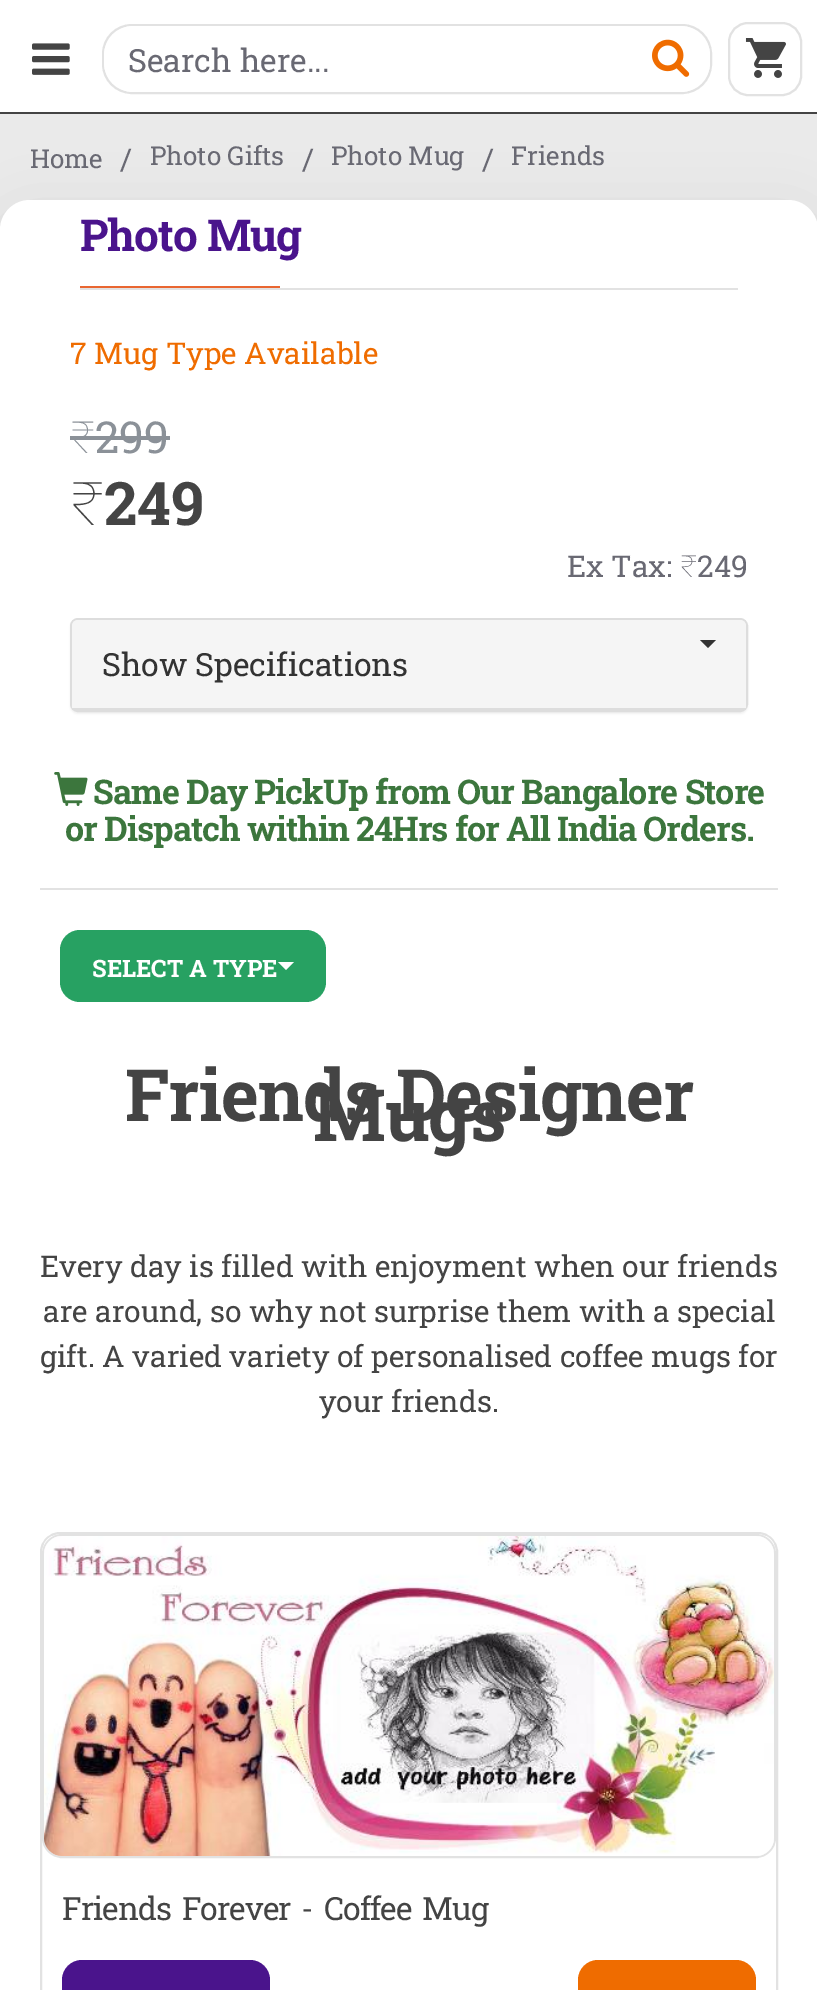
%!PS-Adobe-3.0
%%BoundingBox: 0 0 817 1990
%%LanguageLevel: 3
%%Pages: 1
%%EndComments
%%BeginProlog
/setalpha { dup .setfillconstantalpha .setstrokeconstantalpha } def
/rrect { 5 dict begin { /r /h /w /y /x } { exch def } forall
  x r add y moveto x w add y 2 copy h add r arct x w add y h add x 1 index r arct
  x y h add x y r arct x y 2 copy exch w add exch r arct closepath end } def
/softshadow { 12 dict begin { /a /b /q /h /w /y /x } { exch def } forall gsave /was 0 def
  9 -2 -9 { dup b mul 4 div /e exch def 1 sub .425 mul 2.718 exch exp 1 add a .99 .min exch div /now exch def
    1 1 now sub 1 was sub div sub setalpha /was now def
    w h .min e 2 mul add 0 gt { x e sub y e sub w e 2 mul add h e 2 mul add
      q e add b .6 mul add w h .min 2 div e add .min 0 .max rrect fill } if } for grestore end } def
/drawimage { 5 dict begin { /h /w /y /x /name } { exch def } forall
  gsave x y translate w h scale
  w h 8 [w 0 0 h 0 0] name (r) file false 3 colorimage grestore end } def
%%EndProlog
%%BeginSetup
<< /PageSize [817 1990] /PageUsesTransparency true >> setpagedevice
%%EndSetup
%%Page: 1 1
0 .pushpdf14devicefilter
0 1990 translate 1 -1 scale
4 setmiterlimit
0.918 setgray
0 0 817 1990 rectfill
1 setgray
0 0 817 112 rectfill
(images/1.raw) 32 43 38 32 drawimage
0.886 setgray
2 setlinewidth
103 25 608 68 29 rrect stroke
1 setgray
newpath 134 26 moveto 630 26 lineto 630 92 lineto 134 92 lineto 117.5 92 104 78.5 104 62 curveto 104 56 lineto 104 39.5 117.5 26 134 26 curveto closepath fill
newpath 630 26 moveto 680 26 lineto 696.5 26 710 39.5 710 56 curveto 710 62 lineto 710 78.5 696.5 92 680 92 curveto 630 92 lineto closepath fill
(images/2.raw) 652 39 38 38 drawimage
0.886 setgray
729 23 72 72 19 rrect stroke
(images/3.raw) 745 38 41 40 drawimage
0.267 setgray
0 112 817 2 rectfill
0 setgray
0 220 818 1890 30 30 0.1 softshadow
1 setgray
0 200 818 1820 30 rrect fill
0.886 setgray
80 288 658 2 rectfill
0.914 0.4 0.192 setrgbcolor
80 286 200 2 rectfill
0.545 0.569 0.596 setrgbcolor
70 436 100 4 rectfill
0 setgray
70 620 678 94 8 1 0.05 softshadow
0.867 setgray
71 619 676 92 7 rrect stroke
0.961 setgray
newpath 78 620 moveto 740 620 lineto 743.5 620 746 622.5 746 626 curveto 746 710 lineto 72 710 lineto 72 626 lineto 72 622.5 74.5 620 78 620 curveto closepath fill
0.867 setgray
72 708 674 2 rectfill
0.2 setgray
newpath 700 640 moveto 716 640 lineto 708 648 lineto closepath fill
(images/4.raw) 54 772 34 34 drawimage
0.886 setgray
40 888 738 2 rectfill
0.153 0.631 0.384 setrgbcolor
60 930 266 72 20 rrect fill
1 setgray
newpath 278 962 moveto 294 962 lineto 286 970 lineto closepath fill
0.886 setgray
41 1533 736 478 19 rrect stroke
43 1535 732 322 19 rrect stroke
(images/5.raw) 44 1536 730 320 drawimage
0.29 0.078 0.549 setrgbcolor
62 1960 208 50 20 rrect fill
0.937 0.424 0 setrgbcolor
578 1960 178 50 20 rrect fill
/RobotoSlab-Regular [32 0 0 -32 0 0] selectfont
0.412 0.412 0.451 setrgbcolor
128 72 moveto (Search here...) show
/RobotoSlab-Regular [26 0 0 -26 0 0] selectfont
30 168 moveto (Home) show
/RobotoSlab-Regular [30 0 0 -30 0 0] selectfont
120 170 moveto (/) show
/RobotoSlab-Regular [26 0 0 -26 0 0] selectfont
150 165 moveto (Photo Gifts) show
/RobotoSlab-Regular [30 0 0 -30 0 0] selectfont
302 170 moveto (/) show
/RobotoSlab-Regular [26 0 0 -26 0 0] selectfont
331 165 moveto (Photo Mug) show
/RobotoSlab-Regular [30 0 0 -30 0 0] selectfont
482 170 moveto (/) show
/RobotoSlab-Regular [26 0 0 -26 0 0] selectfont
511 165 moveto (Friends) show
/RobotoSlab-Bold [44 0 0 -44 0 0] selectfont
0.29 0.078 0.549 setrgbcolor
80 251 moveto -1 0 (Photo Mug) ashow
/RobotoSlab-Regular [30 0 0 -30 0 0] selectfont
0.937 0.424 0 setrgbcolor
70 364 moveto (7 Mug Type Available) show
/NotoSans-Thin [44 0 0 -44 0 0] selectfont
0.545 0.569 0.596 setrgbcolor
70 453 moveto (₹) show
/RobotoSlab-Regular [44 0 0 -44 0 0] selectfont
95 453 moveto (299) show
/NotoSans-Thin [60 0 0 -60 0 0] selectfont
0.267 setgray
70 525 moveto (₹) show
/RobotoSlab-Bold [60 0 0 -60 0 0] selectfont
104 525 moveto (249) show
/RobotoSlab-Regular [30 0 0 -30 0 0] selectfont
0.412 0.412 0.451 setrgbcolor
567 577 moveto (Ex Tax:) show
/NotoSans-Thin [30 0 0 -30 0 0] selectfont
680 577 moveto (₹) show
/RobotoSlab-Regular [30 0 0 -30 0 0] selectfont
697 577 moveto (249) show
/RobotoSlab-Regular [32 0 0 -32 0 0] selectfont
0.2 setgray
102 676 moveto (Show Specifications) show
/RobotoSlab-Bold [34 0 0 -34 0 0] selectfont
0.235 0.463 0.239 setrgbcolor
93 804 moveto -1 0 (Same Day PickUp from Our Bangalore Store) ashow
65 841 moveto -1 0 (or Dispatch within 24Hrs for All India Orders.) ashow
/RobotoSlab-Bold [24 0 0 -24 0 0] selectfont
1 setgray
92 977 moveto (SELECT A TYPE) show
/RobotoSlab-Bold [72 0 0 -72 0 0] selectfont
0.267 setgray
125 1121 moveto -1 0 (Friends Designer) ashow
313 1141 moveto -1 0 (Mugs) ashow
/RobotoSlab-Regular [30 0 0 -30 0 0] selectfont
40 1277 moveto (Every day is filled with enjoyment when our friends) show
43 1322 moveto (are around, so why not surprise them with a special) show
40 1367 moveto (gift. A varied variety of personalised coffee mugs for) show
319 1412 moveto (your friends.) show
/RobotoSlab-Regular [32 0 0 -32 0 0] selectfont
62 1920 moveto 4 0 32 -1 0 (Friends Forever - Coffee Mug) awidthshow
.poppdf14devicefilter showpage
%%EOF
